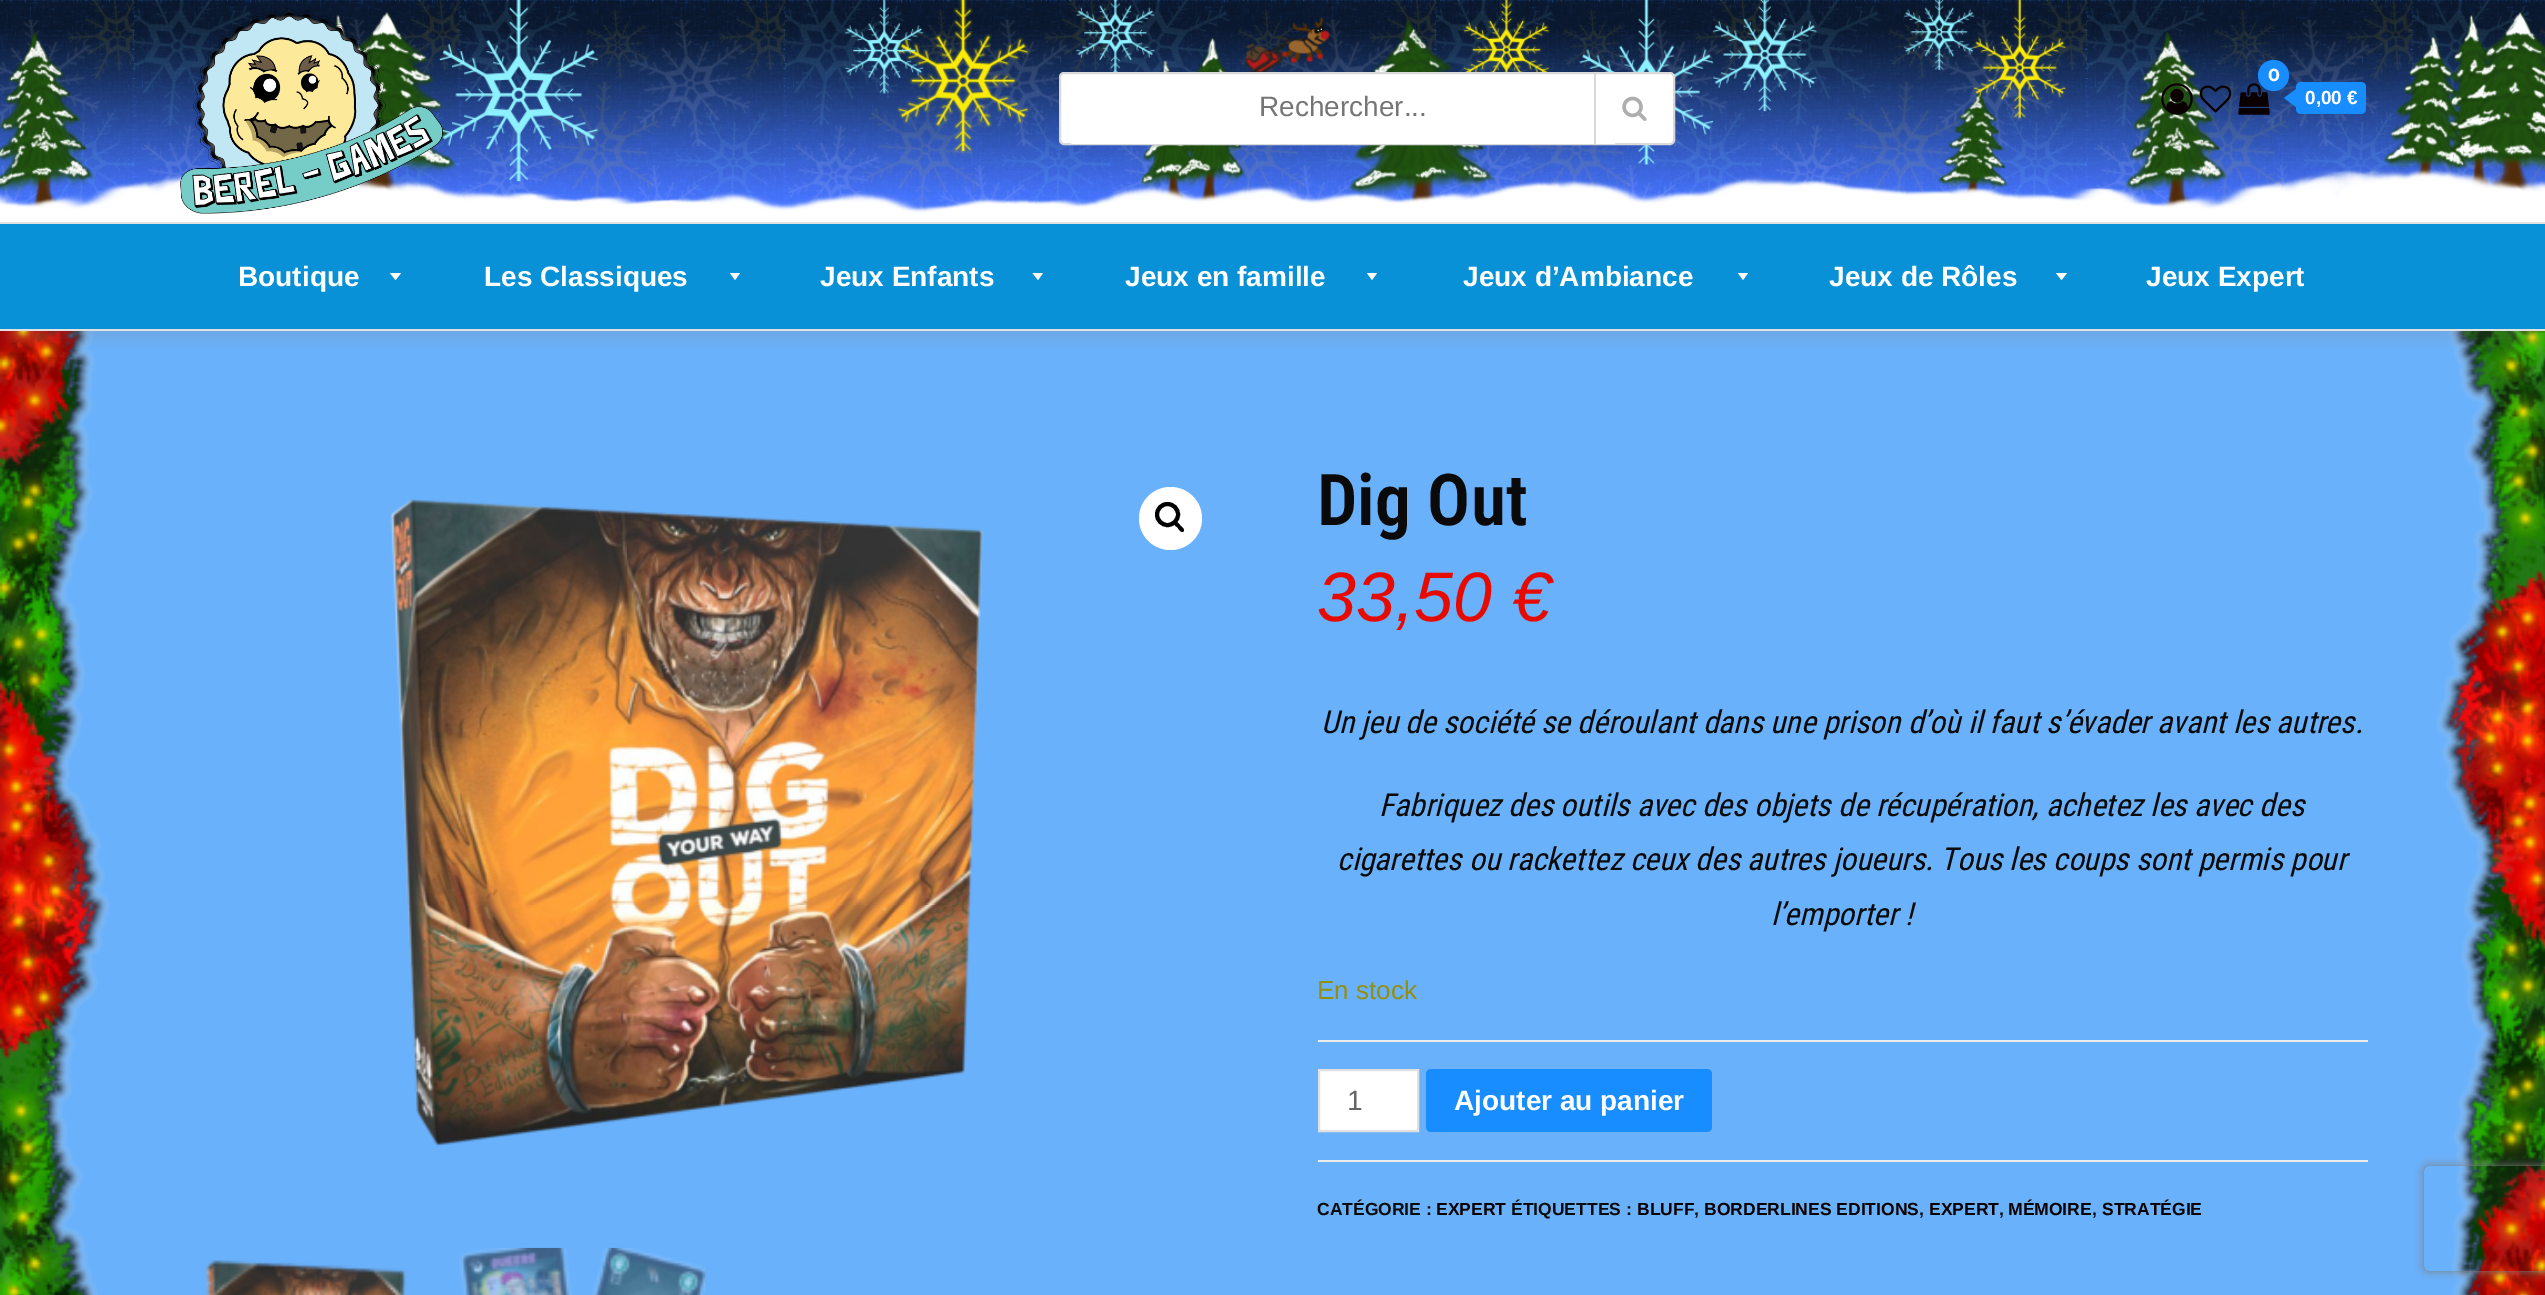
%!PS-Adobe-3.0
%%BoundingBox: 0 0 2545 1295
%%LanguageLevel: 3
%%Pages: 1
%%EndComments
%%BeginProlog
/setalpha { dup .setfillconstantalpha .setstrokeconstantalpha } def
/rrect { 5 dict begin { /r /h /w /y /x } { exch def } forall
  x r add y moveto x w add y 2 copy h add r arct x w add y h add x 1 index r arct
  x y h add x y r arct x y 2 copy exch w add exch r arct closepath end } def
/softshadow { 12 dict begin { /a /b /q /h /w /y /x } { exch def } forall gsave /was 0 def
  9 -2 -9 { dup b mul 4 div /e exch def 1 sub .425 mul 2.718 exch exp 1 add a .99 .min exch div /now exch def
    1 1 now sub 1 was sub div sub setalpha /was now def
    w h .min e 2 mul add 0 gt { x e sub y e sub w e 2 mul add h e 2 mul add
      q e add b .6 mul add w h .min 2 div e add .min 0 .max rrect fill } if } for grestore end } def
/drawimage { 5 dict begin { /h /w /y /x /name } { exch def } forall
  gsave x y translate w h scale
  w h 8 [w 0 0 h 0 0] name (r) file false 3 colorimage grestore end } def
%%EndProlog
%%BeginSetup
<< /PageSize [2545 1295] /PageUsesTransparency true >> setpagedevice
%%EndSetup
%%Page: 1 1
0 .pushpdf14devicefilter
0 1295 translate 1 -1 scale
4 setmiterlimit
0.412 0.694 0.984 setrgbcolor
0 0 2545 1295 rectfill
(images/1.raw) 0 331 2545 964 drawimage
0.51 setgray
5 21 2536 320 0 7 0.18 softshadow
(images/2.raw) 0 0 2545 222 drawimage
(images/3.raw) 180 8 263 206 drawimage
1 setgray
1060 73 614 71 4 rrect gsave fill grestore
0.851 setgray
2 setlinewidth
stroke
1 setgray
1071 143 544 1 rectfill
0.851 setgray
1594 74 2 70 rectfill
(images/4.raw) 1622 96 25 25 drawimage
(images/5.raw) 2161 83 32 32 drawimage
(images/6.raw) 2199 85 33 28 drawimage
(images/7.raw) 2238 83 32 32 drawimage
0.09 0.553 1 setrgbcolor
newpath 2273.5 75.5 15.5 0 360 arc closepath fill
2296 82 70 32 5 rrect fill
newpath 2296 89 moveto 2296 107 lineto 2284 98 lineto closepath fill
0.031 0.569 0.839 setrgbcolor
0 224 2545 105 rectfill
0.882 setgray
0 222 2545 2 rectfill
0 329 2545 2 rectfill
1 setgray
newpath 390 273 moveto 401 273 lineto 395.5 280 lineto closepath fill
newpath 730 273 moveto 740 273 lineto 735 280 lineto closepath fill
newpath 1032.5 273 moveto 1043 273 lineto 1038 280 lineto closepath fill
newpath 1367 273 moveto 1377 273 lineto 1372 280 lineto closepath fill
newpath 1738 273 moveto 1748 273 lineto 1743 280 lineto closepath fill
newpath 2056 273 moveto 2067 273 lineto 2061.5 280 lineto closepath fill
(images/8.raw) 390 499 594 648 drawimage
newpath 1170.5 518.5 31.5 0 360 arc closepath fill
0 setgray
4 setlinewidth
newpath 1167.5 514.5 10.5 0 360 arc closepath stroke
newpath 1173.5 521.5 moveto 1175.5 519.5 1179 524 1180 525 curveto 1181 526.5 1185.5 529.5 1183.5 531.5 curveto 1181.5 533.5 1178.5 529 1177.5 527.5 curveto 1176.5 526.5 1171.5 523.5 1173.5 521.5 curveto closepath fill
(images/9.raw) 205 1260 202 35 drawimage
(images/10.raw) 459 1247 247 48 drawimage
0.925 setgray
1318 1040 1050 2 rectfill
1318 1160 1050 2 rectfill
1 setgray
newpath 1319 1070 moveto 1418 1070 lineto 1418 1131 lineto 1319 1131 lineto closepath gsave fill grestore
0.878 setgray
2 setlinewidth
stroke
0.09 0.553 1 setrgbcolor
1426 1069 286 63 5 rrect fill
gsave
newpath 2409 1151 moveto 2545 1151 lineto 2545 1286 lineto 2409 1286 lineto closepath 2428 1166 moveto 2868 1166 lineto 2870 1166 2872 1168 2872 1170 curveto 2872 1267 lineto 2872 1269 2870 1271 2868 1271 curveto 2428 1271 lineto 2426 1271 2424 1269 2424 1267 curveto 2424 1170 lineto 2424 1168 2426 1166 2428 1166 curveto closepath eoclip newpath
0.502 setgray
2424 1166 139 105 4 4.5 1 softshadow
grestore
/LiberationSans-Regular [28 0 0 -28 0 0] selectfont
0.459 setgray
1259 116 moveto (Rechercher...) show
/Montserrat-Bold [17.5 0 0 -17.5 0 0] selectfont
1 setgray
2268 81 moveto (0) show
/LiberationSans-Bold [19 0 0 -19 0 0] selectfont
2305 104 moveto (0,00 €) show
/LiberationSans-Bold [28 0 0 -28 0 0] selectfont
238 286 moveto (Boutique) show
484 286 moveto (Les Classiques) show
820 286 moveto (Jeux Enfants) show
1125 286 moveto (Jeux en famille) show
1463 286 moveto (Jeux d’Ambiance) show
1829 286 moveto (Jeux de Rôles) show
2146 286 moveto (Jeux Expert) show
/RobotoCondensed-SemiBold [71.5 0 0 -71.5 0 0] selectfont
0.039 setgray
1317 525 moveto (Dig Out) show
/LiberationSans-Italic [70 0 0 -70 0 0] selectfont
0.906 0.039 0 setrgbcolor
1317 621 moveto (33,50 €) show
/RobotoCondensed-Italic [31.5 0 0 -31.5 0 0] selectfont
0.039 setgray
1321 733 moveto (Un jeu de société se déroulant dans une prison d’où il faut s’évader avant les autres.) show
1379 816 moveto (Fabriquez des outils avec des objets de récupération, achetez les avec des) show
1337 870 moveto (cigarettes ou rackettez ceux des autres joueurs. Tous les coups sont permis pour) show
1771 925 moveto (l’emporter !) show
/LiberationSans-Regular [26 0 0 -26 0 0] selectfont
0.584 0.557 0.035 setrgbcolor
1317 999 moveto (En stock) show
/LiberationSans-Regular [28 0 0 -28 0 0] selectfont
0.4 setgray
1347 1110 moveto (1) show
/LiberationSans-Bold [28 0 0 -28 0 0] selectfont
1 setgray
1454 1110 moveto (Ajouter au panier) show
/LiberationSans-Bold [17.5 0 0 -17.5 0 0] selectfont
0.039 setgray
1317 1215 moveto (CATÉGORIE :) show
0.039 0 0 setrgbcolor
1436 1215 moveto (EXPERT) show
0.039 setgray
1511 1215 moveto (ÉTIQUETTES :) show
0.039 0 0 setrgbcolor
1637 1215 moveto (BLUFF) show
0.039 setgray
1694 1215 moveto (,) show
0.039 0 0 setrgbcolor
1704 1215 moveto (BORDERLINES EDITIONS) show
0.039 setgray
1919 1215 moveto (,) show
0.039 0 0 setrgbcolor
1929 1215 moveto (EXPERT) show
0.039 setgray
1999 1215 moveto (,) show
0.039 0 0 setrgbcolor
2008 1215 moveto (MÉMOIRE) show
0.039 setgray
2092 1215 moveto (,) show
0.039 0 0 setrgbcolor
2102 1215 moveto (STRATÉGIE) show
.poppdf14devicefilter showpage
%%EOF
